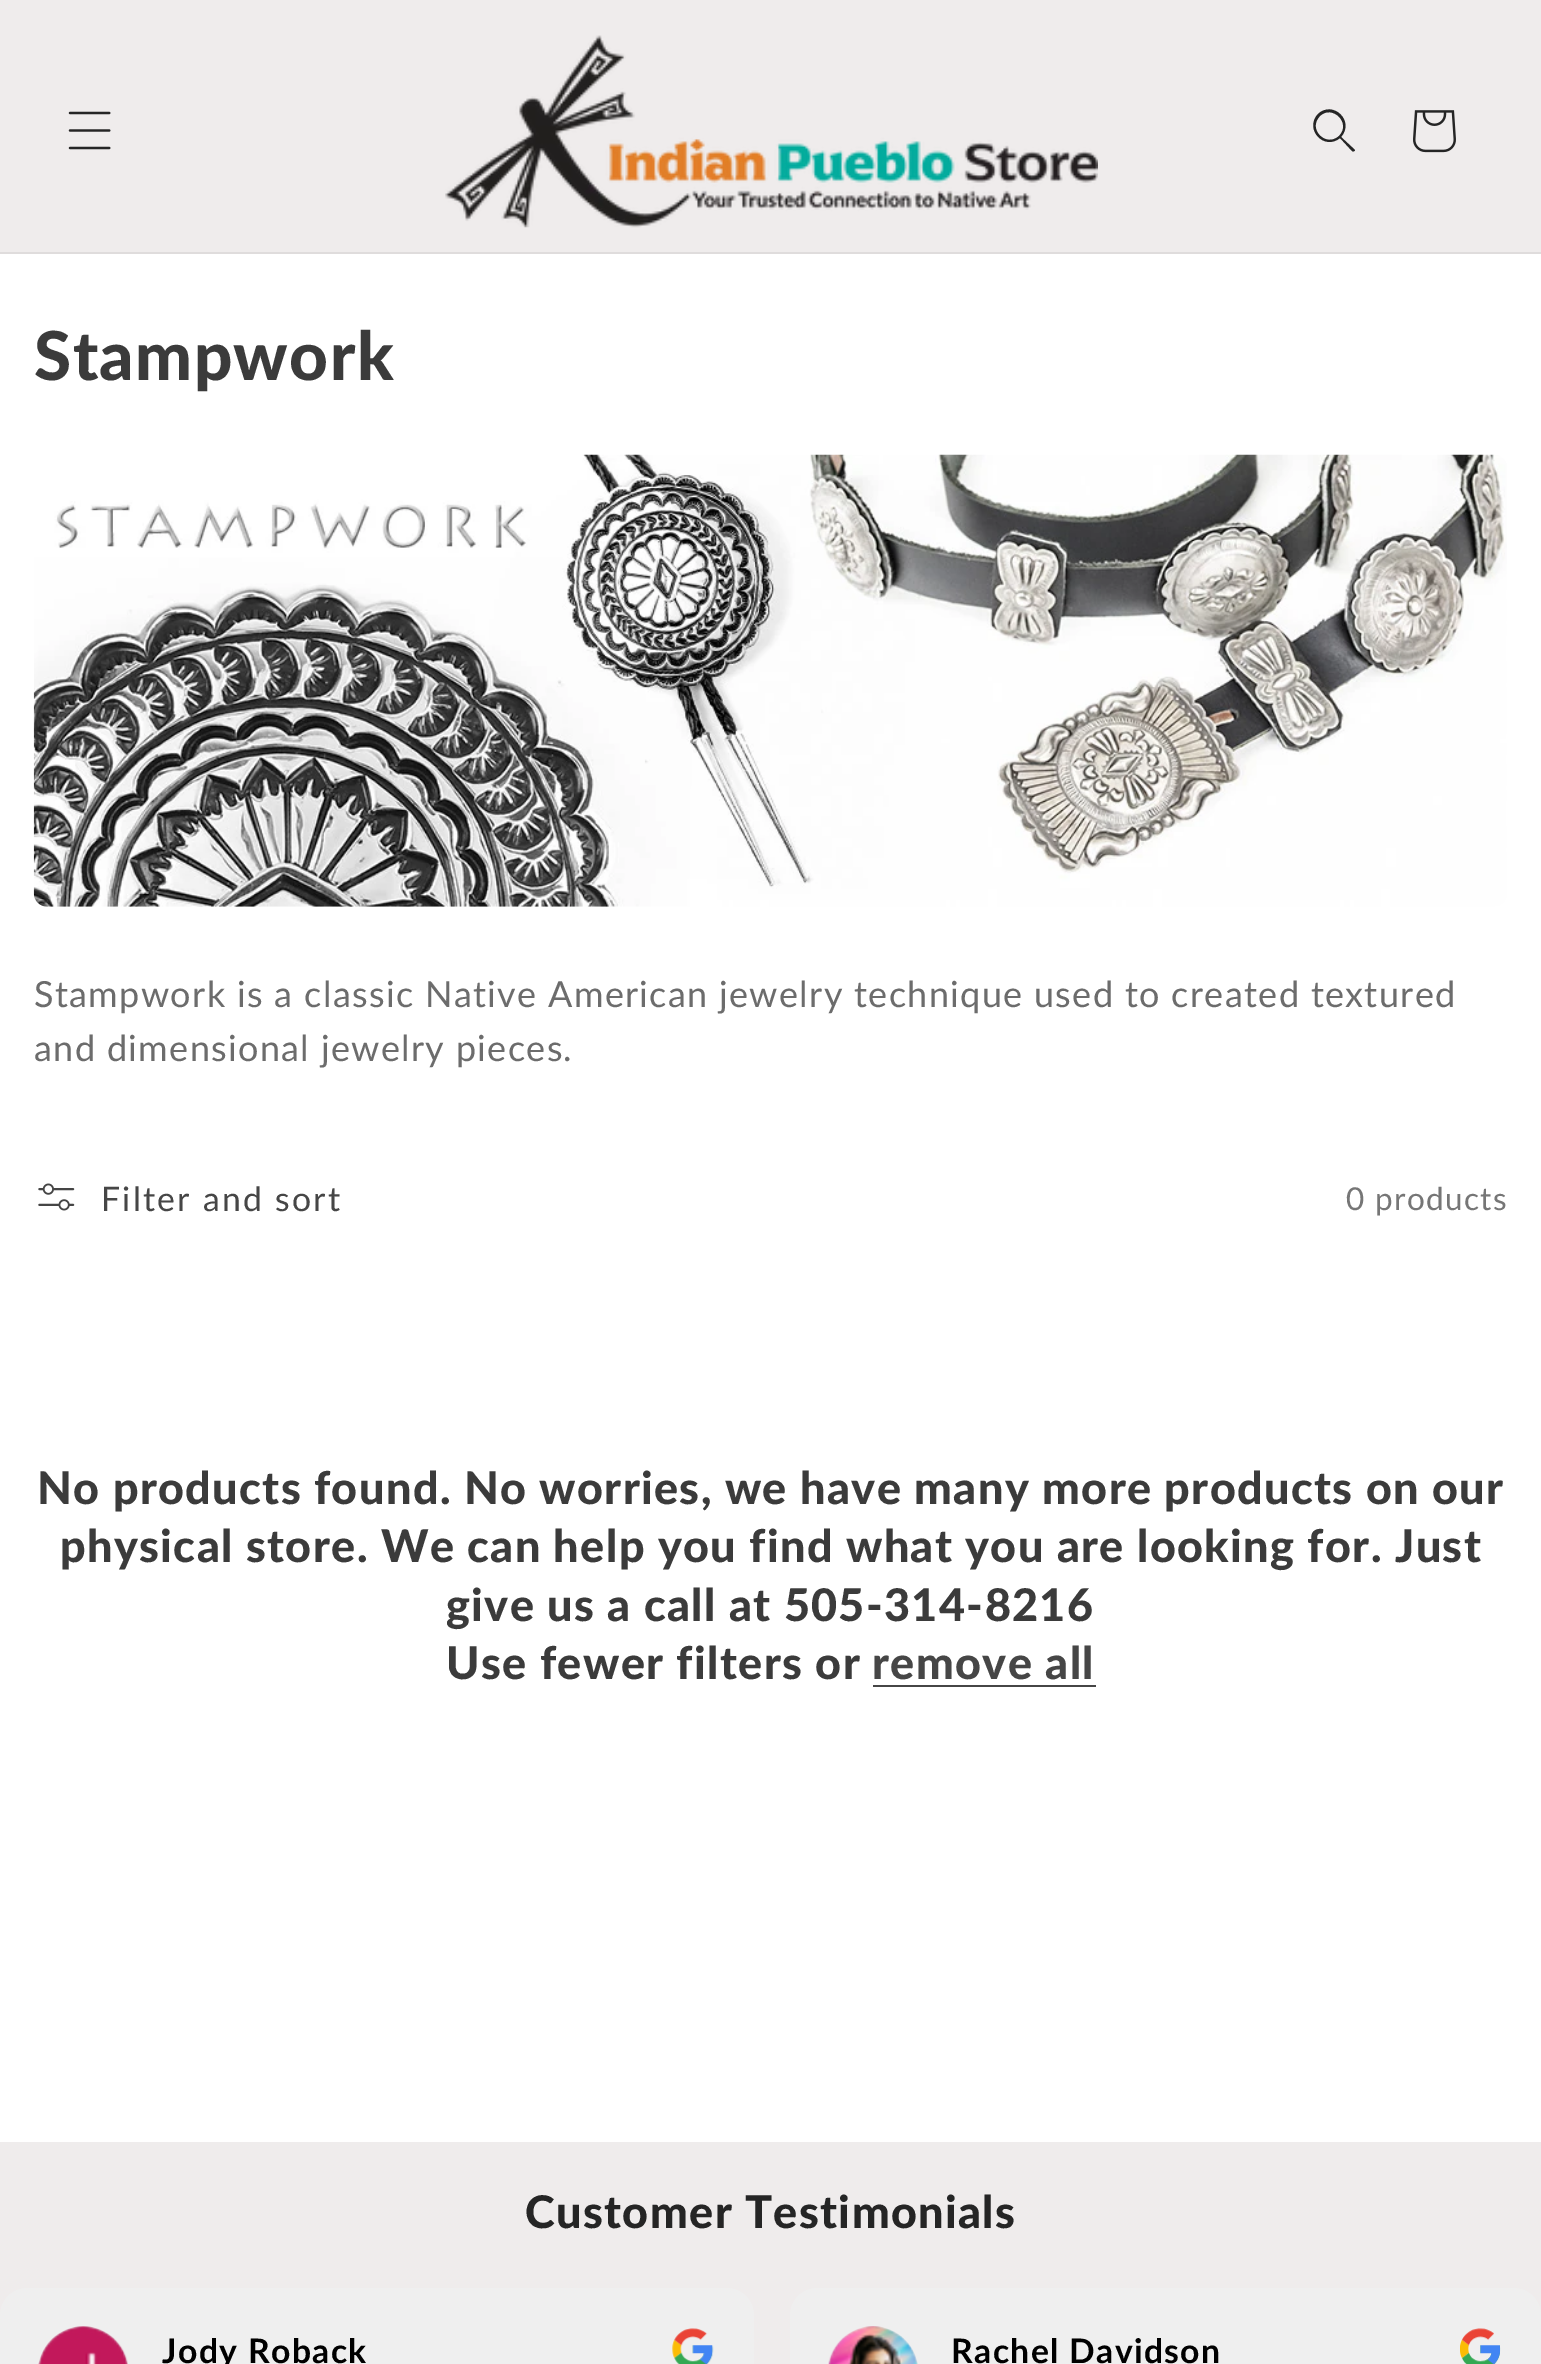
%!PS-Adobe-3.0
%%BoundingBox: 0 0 1541 2364
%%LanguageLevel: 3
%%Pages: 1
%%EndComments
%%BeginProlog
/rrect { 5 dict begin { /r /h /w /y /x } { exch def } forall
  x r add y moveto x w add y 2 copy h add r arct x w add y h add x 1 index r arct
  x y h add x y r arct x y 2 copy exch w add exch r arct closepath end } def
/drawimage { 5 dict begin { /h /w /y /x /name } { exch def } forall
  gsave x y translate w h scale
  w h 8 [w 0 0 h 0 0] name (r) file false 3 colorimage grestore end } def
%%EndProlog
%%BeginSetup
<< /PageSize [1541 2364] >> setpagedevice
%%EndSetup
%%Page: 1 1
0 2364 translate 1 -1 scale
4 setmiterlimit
0.937 0.925 0.925 setrgbcolor
0 0 1541 2364 rectfill
0.875 0.863 0.863 setrgbcolor
0 252 1541 2 rectfill
(images/1.raw) 68 111 43 39 drawimage
(images/2.raw) 445 35 653 193 drawimage
0.145 setgray
newpath 1339 136 moveto 1326 148 1307 129 1320 116 curveto 1332 104 1352 123 1339 136 curveto 1340 138 moveto 1324 151 1304 129 1318 114 curveto 1333 100 1355 121 1341 137 curveto 1355 150 lineto 1355 151 1353 152 1352 151 curveto closepath eofill
(images/3.raw) 1413 110 43 43 drawimage
1 setgray
0 254 1541 1888 rectfill
(images/4.raw) 33 454 1474 453 drawimage
(images/5.raw) 38 1183 37 28 drawimage
0.275 setgray
873 1685 223 2 rectfill
0.937 setgray
0 2288 754 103 27 rrect fill
(images/6.raw) 38 2326 90 38 drawimage
(images/7.raw) 672 2328 42 36 drawimage
790 2288 751 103 27 rrect fill
(images/8.raw) 828 2326 90 38 drawimage
(images/9.raw) 1460 2328 41 36 drawimage
/Lato-Black [67.5 0 0 -67.5 0 0] selectfont
0.231 setgray
34 380 moveto 1.35 0 (Stampwork) ashow
/Lato-Regular [36 0 0 -36 0 0] selectfont
0.424 setgray
34 1007 moveto 1.35 0 (Stampwork is a classic Native American jewelry technique used to created textured) ashow
34 1061 moveto 1.35 0 (and dimensional jewelry pieces.) ashow
/Lato-Regular [33.75 0 0 -33.75 0 0] selectfont
0.275 setgray
101 1211 moveto 2.25 0 (Filter and sort) ashow
/Lato-Regular [31.5 0 0 -31.5 0 0] selectfont
0.463 setgray
1346 1210 moveto 1.35 0 (0 products) ashow
/Lato-Black [45 0 0 -45 0 0] selectfont
0.231 setgray
37 1504 moveto 1.35 0 (No products found. No worries, we have many more products on our) ashow
60 1562 moveto 1.35 0 (physical store. We can help you find what you are looking for. Just) ashow
446 1621 moveto 1.35 0 (give us a call at 505-314-8216) ashow
446 1679 moveto 1.35 0 (Use fewer filters or) ashow
0.275 setgray
872 1679 moveto 1.35 0 (remove all) ashow
0.145 setgray
525 2228 moveto 1.35 0 (Customer Testimonials) ashow
/Lato-Bold [33.75 0 0 -33.75 0 0] selectfont
0 setgray
162 2363 moveto 1.35 0 (Jody Roback) ashow
951 2363 moveto 1.35 0 (Rachel Davidson) ashow
showpage
%%EOF
